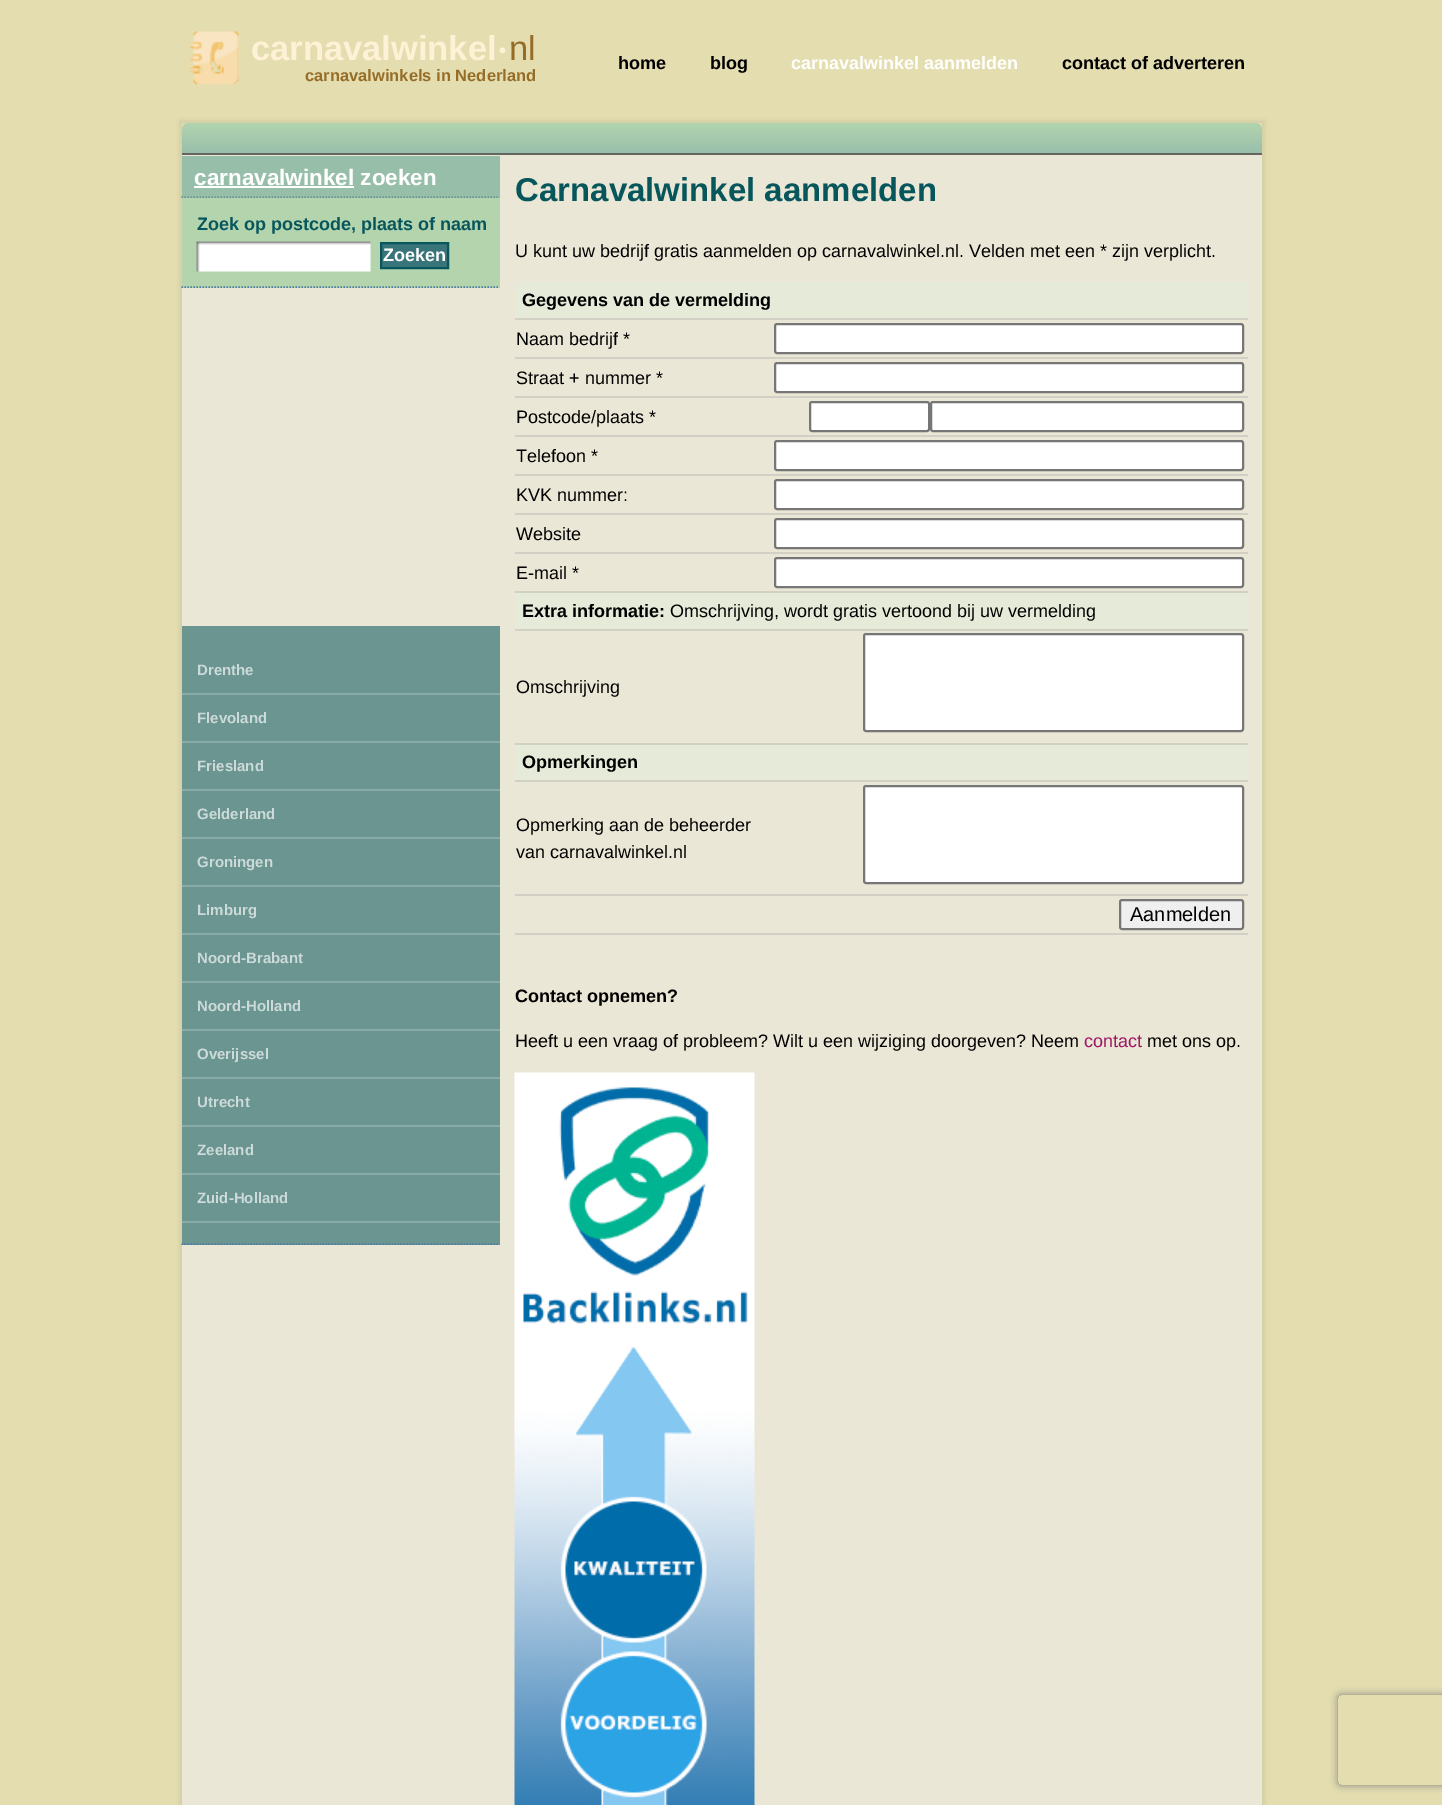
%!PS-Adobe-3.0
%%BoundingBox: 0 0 1442 1805
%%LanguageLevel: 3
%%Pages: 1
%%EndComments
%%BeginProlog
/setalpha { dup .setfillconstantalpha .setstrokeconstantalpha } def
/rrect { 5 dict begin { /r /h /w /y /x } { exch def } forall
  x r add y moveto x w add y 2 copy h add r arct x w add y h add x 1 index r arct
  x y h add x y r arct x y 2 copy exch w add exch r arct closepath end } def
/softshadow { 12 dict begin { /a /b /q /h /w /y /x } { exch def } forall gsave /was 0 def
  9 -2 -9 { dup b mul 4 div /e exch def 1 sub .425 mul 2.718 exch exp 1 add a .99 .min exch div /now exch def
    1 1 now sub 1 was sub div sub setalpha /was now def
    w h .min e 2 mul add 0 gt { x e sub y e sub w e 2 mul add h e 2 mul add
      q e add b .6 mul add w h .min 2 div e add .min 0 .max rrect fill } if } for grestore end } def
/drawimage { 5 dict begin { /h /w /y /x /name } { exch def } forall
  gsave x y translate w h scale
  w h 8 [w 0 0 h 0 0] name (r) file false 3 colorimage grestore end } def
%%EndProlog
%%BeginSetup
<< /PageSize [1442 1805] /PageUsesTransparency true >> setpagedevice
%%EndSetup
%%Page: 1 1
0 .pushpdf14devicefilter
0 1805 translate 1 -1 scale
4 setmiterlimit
0.89 0.867 0.69 setrgbcolor
0 0 1442 1805 rectfill
(images/1.raw) 190 31 49 54 drawimage
gsave
newpath 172 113 moveto 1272 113 lineto 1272 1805 lineto 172 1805 lineto closepath 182 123 moveto 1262 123 lineto 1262 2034 lineto 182 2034 lineto closepath eoclip newpath
0 setgray
179 120 1086 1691 0 2 0.05 softshadow
grestore
gsave newpath 190 123 moveto 1254 123 lineto 1258.5 123 1262 126.5 1262 131 curveto 1262 153 lineto 182 153 lineto 182 131 lineto 182 126.5 185.5 123 190 123 curveto closepath clip newpath
<< /ShadingType 2 /ColorSpace /DeviceRGB /Coords [722 123 722 153] /Extend [true true] /Function << /FunctionType 2 /Domain [0 1] /C0 [0.698 0.831 0.686] /C1 [0.596 0.749 0.667] /N 1 >> >> shfill grestore
0.4 0.392 0.369 setrgbcolor
182 153 1080 2 rectfill
0.922 0.906 0.839 setrgbcolor
182 155 1080 1650 rectfill
0.592 0.745 0.663 setrgbcolor
182 156 318 42 rectfill
0.42 0.584 0.569 setrgbcolor
1.5 setlinewidth
[1.5 1.5] 0 setdash
newpath 181.5 197 moveto 499.5 197 lineto stroke
1 setgray
194 186 160 2 rectfill
0.706 0.831 0.678 setrgbcolor
182 198 318 90 rectfill
0.306 0.482 0.647 setrgbcolor
newpath 181.5 287 moveto 499.5 287 lineto stroke
(images/2.raw) 196 241 175 31 drawimage
0.224 0.455 0.478 setrgbcolor
newpath 381 243 moveto 448 243 lineto 448 268 lineto 381 268 lineto closepath gsave fill grestore
0.027 0.337 0.357 setrgbcolor
2 setlinewidth
[] 0 setdash
stroke
0.42 0.584 0.569 setrgbcolor
182 626 318 619 rectfill
0.306 0.482 0.647 setrgbcolor
1.5 setlinewidth
[1.5 1.5] 0 setdash
newpath 181.5 1244 moveto 499.5 1244 lineto stroke
0.537 0.667 0.655 setrgbcolor
182 693 318 2 rectfill
182 741 318 2 rectfill
182 789 318 2 rectfill
182 837 318 2 rectfill
182 885 318 2 rectfill
182 933 318 2 rectfill
182 981 318 2 rectfill
182 1029 318 2 rectfill
182 1077 318 2 rectfill
182 1125 318 2 rectfill
182 1173 318 2 rectfill
182 1221 318 2 rectfill
0.898 0.922 0.847 setrgbcolor
515 282 732 36 rectfill
0.824 0.816 0.773 setrgbcolor
515 318 733 2 rectfill
515 357 733 2 rectfill
1 setgray
775 324 468 29 2 rrect gsave fill grestore
0.463 setgray
2 setlinewidth
[] 0 setdash
stroke
0.824 0.816 0.773 setrgbcolor
515 396 733 2 rectfill
1 setgray
775 363 468 29 2 rrect gsave fill grestore
0.463 setgray
stroke
0.824 0.816 0.773 setrgbcolor
515 435 733 2 rectfill
1 setgray
810 402 119 29 2 rrect gsave fill grestore
0.463 setgray
stroke
1 setgray
931 402 312 29 2 rrect gsave fill grestore
0.463 setgray
stroke
0.824 0.816 0.773 setrgbcolor
515 474 733 2 rectfill
1 setgray
775 441 468 29 2 rrect gsave fill grestore
0.463 setgray
stroke
0.824 0.816 0.773 setrgbcolor
515 513 733 2 rectfill
1 setgray
775 480 468 29 2 rrect gsave fill grestore
0.463 setgray
stroke
0.824 0.816 0.773 setrgbcolor
515 552 733 2 rectfill
1 setgray
775 519 468 29 2 rrect gsave fill grestore
0.463 setgray
stroke
0.824 0.816 0.773 setrgbcolor
515 591 733 2 rectfill
1 setgray
775 558 468 29 2 rrect gsave fill grestore
0.463 setgray
stroke
0.898 0.922 0.847 setrgbcolor
515 593 732 36 rectfill
0.824 0.816 0.773 setrgbcolor
515 629 733 2 rectfill
515 743 733 2 rectfill
1 setgray
864 634 379 97 2 rrect gsave fill grestore
0.463 setgray
stroke
0.898 0.922 0.847 setrgbcolor
515 745 732 35 rectfill
0.824 0.816 0.773 setrgbcolor
515 780 733 2 rectfill
515 894 733 2 rectfill
1 setgray
864 786 379 97 2 rrect gsave fill grestore
0.463 setgray
stroke
0.824 0.816 0.773 setrgbcolor
515 933 733 2 rectfill
0.937 setgray
1120 900 123 29 2 rrect gsave fill grestore
0.463 setgray
stroke
gsave
newpath 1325 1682 moveto 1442 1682 lineto 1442 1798 lineto 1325 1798 lineto closepath 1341 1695 moveto 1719 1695 lineto 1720.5 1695 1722 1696.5 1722 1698 curveto 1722 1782 lineto 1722 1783.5 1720.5 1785 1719 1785 curveto 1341 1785 lineto 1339.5 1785 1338 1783.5 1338 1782 curveto 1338 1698 lineto 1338 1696.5 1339.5 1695 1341 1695 curveto closepath eoclip newpath
0.502 setgray
1338 1695 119 90 3 4 1 softshadow
grestore
(images/3.raw) 514 1072 241 733 drawimage
/LiberationSans-Bold [34.5 0 0 -34.5 0 0] selectfont
1 0.945 0.835 setrgbcolor
251 60 moveto (carnavalwinkel) show
/LiberationSans-Bold [20 0 0 -20 0 0] selectfont
499 57 moveto (•) show
/LiberationSans-Regular [34.5 0 0 -34.5 0 0] selectfont
0.584 0.427 0.153 setrgbcolor
509 60 moveto (nl) show
/LiberationSans-Bold [16.5 0 0 -16.5 0 0] selectfont
305 81 moveto (carnavalwinkels in Nederland) show
/LiberationSans-Bold [18 0 0 -18 0 0] selectfont
0 setgray
618 69 moveto (home) show
710 69 moveto (blog) show
1 setgray
791 69 moveto (carnavalwinkel aanmelden) show
0 setgray
1062 69 moveto (contact of adverteren) show
/LiberationSans-Bold [22.5 0 0 -22.5 0 0] selectfont
1 setgray
194 185 moveto (carnavalwinkel zoeken) show
/LiberationSans-Bold [18 0 0 -18 0 0] selectfont
0.027 0.337 0.357 setrgbcolor
197 230 moveto (Zoek op postcode, plaats of naam) show
1 setgray
383 261 moveto (Zoeken) show
/LiberationSans-Bold [15 0 0 -15 0 0] selectfont
0.8 0.855 0.851 setrgbcolor
197 675 moveto (Drenthe) show
197 723 moveto (Flevoland) show
197 771 moveto (Friesland) show
197 819 moveto (Gelderland) show
197 867 moveto (Groningen) show
197 915 moveto (Limburg) show
197 963 moveto (Noord-Brabant) show
197 1011 moveto (Noord-Holland) show
197 1059 moveto (Overijssel) show
197 1107 moveto (Utrecht) show
197 1155 moveto (Zeeland) show
197 1203 moveto (Zuid-Holland) show
/LiberationSans-Bold [33 0 0 -33 0 0] selectfont
0.027 0.337 0.357 setrgbcolor
515 201 moveto (Carnavalwinkel aanmelden) show
/LiberationSans-Regular [18 0 0 -18 0 0] selectfont
0 setgray
515 257 moveto (U kunt uw bedrijf gratis aanmelden op carnavalwinkel.nl. Velden met een * zijn verplicht.) show
/LiberationSans-Bold [18 0 0 -18 0 0] selectfont
522 306 moveto (Gegevens van de vermelding) show
/LiberationSans-Regular [18 0 0 -18 0 0] selectfont
516 345 moveto (Naam bedrijf *) show
516 384 moveto (Straat + nummer *) show
516 423 moveto (Postcode/plaats *) show
516 462 moveto (Telefoon *) show
516 501 moveto (KVK nummer:) show
516 540 moveto (Website) show
516 579 moveto (E-mail *) show
/LiberationSans-Bold [18 0 0 -18 0 0] selectfont
522 617 moveto (Extra informatie:) show
/LiberationSans-Regular [18 0 0 -18 0 0] selectfont
670 617 moveto (Omschrijving, wordt gratis vertoond bij uw vermelding) show
516 693 moveto (Omschrijving) show
/LiberationSans-Bold [18 0 0 -18 0 0] selectfont
522 768 moveto (Opmerkingen) show
/LiberationSans-Regular [18 0 0 -18 0 0] selectfont
516 831 moveto (Opmerking aan de beheerder) show
516 858 moveto (van carnavalwinkel.nl) show
/LiberationSans-Regular [20 0 0 -20 0 0] selectfont
1130 921 moveto (Aanmelden) show
/LiberationSans-Bold [18 0 0 -18 0 0] selectfont
515 1002 moveto (Contact opnemen?) show
/LiberationSans-Regular [18 0 0 -18 0 0] selectfont
515 1047 moveto (Heeft u een vraag of probleem? Wilt u een wijziging doorgeven? Neem) show
0.62 0.078 0.396 setrgbcolor
1084 1047 moveto (contact) show
0 setgray
1147 1047 moveto (met ons op.) show
.poppdf14devicefilter showpage
%%EOF
